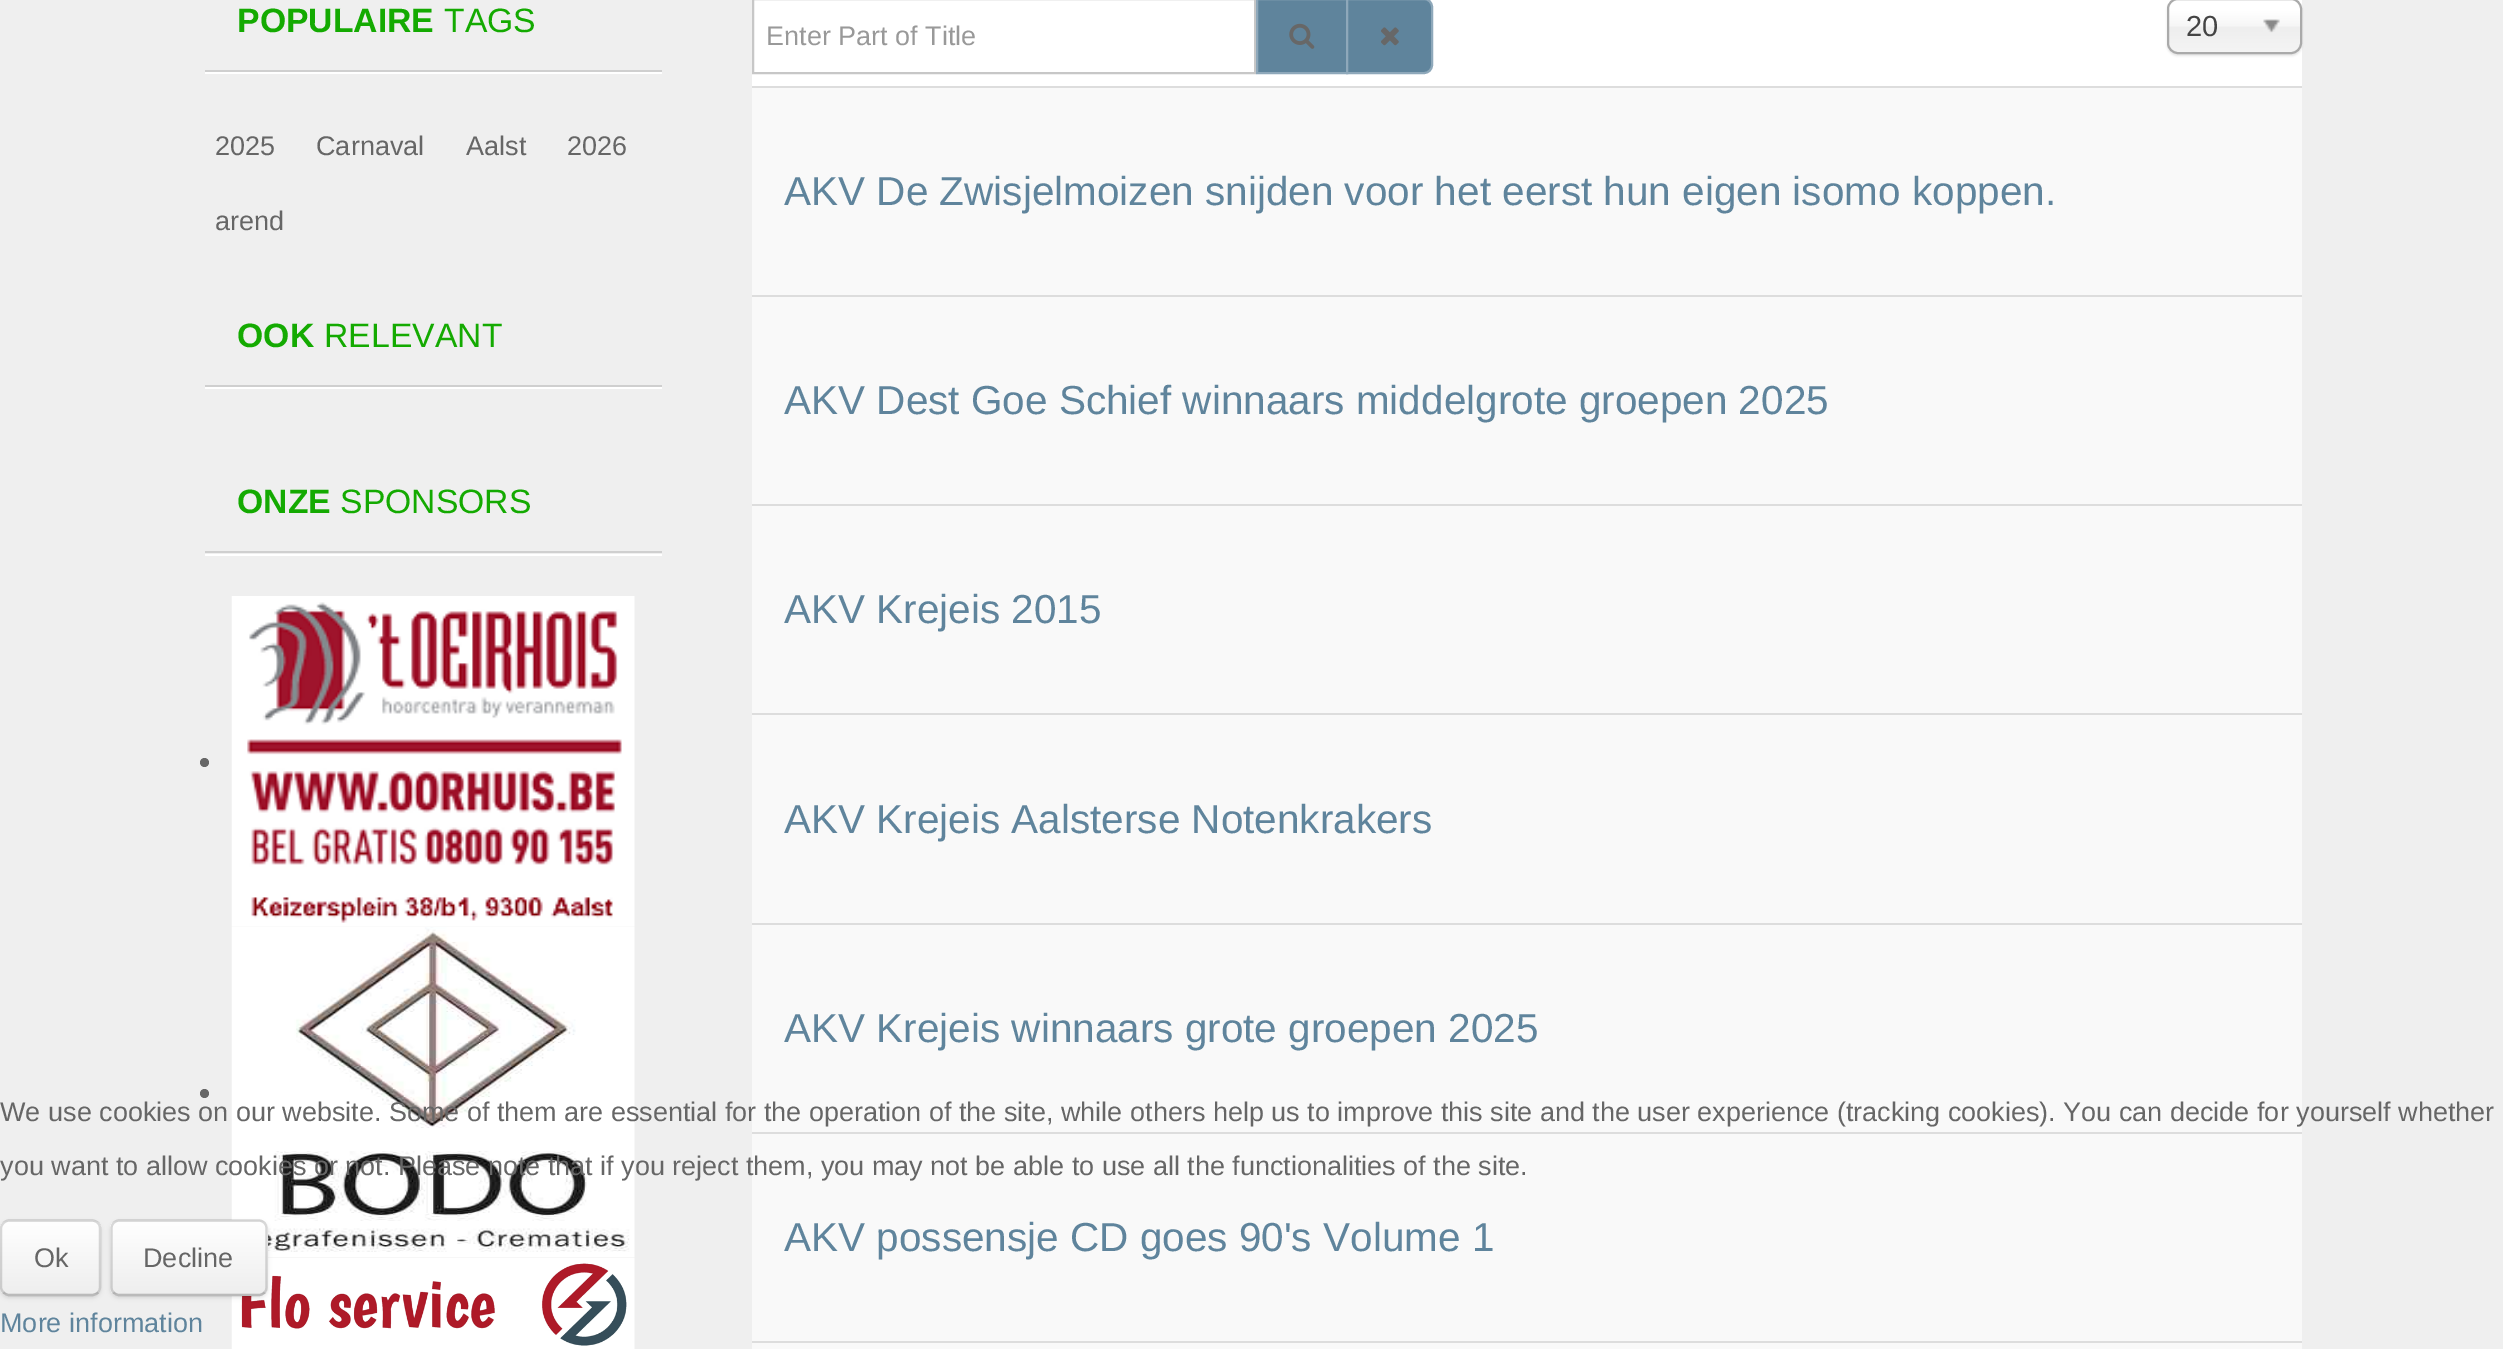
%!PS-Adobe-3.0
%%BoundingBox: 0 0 2503 1349
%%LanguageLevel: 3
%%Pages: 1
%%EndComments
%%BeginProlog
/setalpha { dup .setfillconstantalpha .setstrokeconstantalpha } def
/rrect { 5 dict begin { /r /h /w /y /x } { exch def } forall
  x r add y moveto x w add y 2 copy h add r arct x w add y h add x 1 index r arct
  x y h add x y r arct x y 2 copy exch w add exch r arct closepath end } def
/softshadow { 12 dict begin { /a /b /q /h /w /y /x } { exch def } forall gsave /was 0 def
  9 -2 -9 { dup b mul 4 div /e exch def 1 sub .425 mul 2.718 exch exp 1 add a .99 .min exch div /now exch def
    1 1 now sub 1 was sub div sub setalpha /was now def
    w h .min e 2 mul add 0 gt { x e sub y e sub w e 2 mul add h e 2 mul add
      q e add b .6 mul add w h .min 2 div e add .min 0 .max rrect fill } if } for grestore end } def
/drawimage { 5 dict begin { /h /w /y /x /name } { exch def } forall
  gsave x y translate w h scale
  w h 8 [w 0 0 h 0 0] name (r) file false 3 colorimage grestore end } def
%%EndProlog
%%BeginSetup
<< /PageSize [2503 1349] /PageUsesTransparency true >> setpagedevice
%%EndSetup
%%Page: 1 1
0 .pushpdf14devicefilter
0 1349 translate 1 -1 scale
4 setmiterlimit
0.937 setgray
0 0 2503 1349 rectfill
0.812 setgray
205 70 457 2 rectfill
1 setgray
205 72 457 2 rectfill
0.812 setgray
205 385 457 2 rectfill
1 setgray
205 387 457 2 rectfill
0.812 setgray
205 551 457 2 rectfill
1 setgray
205 554 457 2 rectfill
0.404 setgray
newpath 204.5 762.5 4.5 0 360 arc closepath fill
(images/1.raw) 231 596 404 331 drawimage
newpath 204.5 1093.5 4.5 0 360 arc closepath fill
(images/2.raw) 231 927 404 331 drawimage
(images/3.raw) 231 1258 404 91 drawimage
1 setgray
752 0 1550 86 rectfill
0.78 setgray
2 setlinewidth
753 -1 502 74 rectstroke
0.373 0.518 0.612 setrgbcolor
newpath 1257 -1 moveto 1347 -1 lineto 1347 73 lineto 1257 73 lineto closepath gsave fill grestore
0.557 0.659 0.729 setrgbcolor
stroke
(images/4.raw) 1289 23 26 26 drawimage
0.373 0.518 0.612 setrgbcolor
newpath 1347 -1 moveto 1424 -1 lineto 1428.5 -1 1432 2.5 1432 7 curveto 1432 65 lineto 1432 69.5 1428.5 73 1424 73 curveto 1347 73 lineto closepath gsave fill grestore
0.557 0.659 0.729 setrgbcolor
stroke
(images/5.raw) 1381 27 18 19 drawimage
0 setgray
2167 0 135 56 11 1 0.1 softshadow
gsave 2169 0 131 52 9 rrect clip newpath
<< /ShadingType 2 /ColorSpace /DeviceRGB /Coords [2234 0 2234 52] /Extend [true true] /Function << /FunctionType 3 /Domain [0 1] /Functions [<< /FunctionType 2 /Domain [0 1] /C0 [1 1 1] /C1 [1 1 1] /N 1 >> << /FunctionType 2 /Domain [0 1] /C0 [1 1 1] /C1 [0.965 0.965 0.965] /N 1 >> << /FunctionType 2 /Domain [0 1] /C0 [0.965 0.965 0.965] /C1 [0.933 0.933 0.933] /N 1 >> << /FunctionType 2 /Domain [0 1] /C0 [0.933 0.933 0.933] /C1 [0.957 0.957 0.957] /N 1 >>] /Bounds [0.2 0.5 0.52] /Encode [0 1 0 1 0 1 0 1] >> >> shfill grestore
0.667 setgray
2168 -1 133 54 10 rrect stroke
(images/6.raw) 2263 19 17 14 drawimage
0.867 setgray
752 86 1550 2 rectfill
0.976 setgray
752 88 1550 207 rectfill
0.867 setgray
752 295 1550 2 rectfill
0.976 setgray
752 297 1550 207 rectfill
0.867 setgray
752 504 1550 2 rectfill
0.976 setgray
752 506 1550 417 rectfill
0.867 setgray
752 713 1550 2 rectfill
752 923 1550 2 rectfill
0.976 setgray
752 925 1550 207 rectfill
0.867 setgray
752 1132 1550 2 rectfill
0.976 setgray
752 1134 1550 207 rectfill
0.867 setgray
752 1341 1550 2 rectfill
0.976 setgray
752 1343 1550 6 rectfill
0 setgray
0 1222 101 76 9 2 0.1 softshadow
0.973 setgray
0 1220 101 76 9 rrect fill
gsave
0 1220 101 76 9 rrect clip newpath
gsave newpath 0 1222 moveto 101 1222 lineto 101 1294 lineto 0 1294 lineto closepath clip newpath
<< /ShadingType 2 /ColorSpace /DeviceRGB /Coords [51 1222 51 1294] /Extend [true true] /Function << /FunctionType 2 /Domain [0 1] /C0 [1 1 1] /C1 [0.933 0.933 0.933] /N 1 >> >> shfill grestore
grestore
0.25 setalpha
0 setgray
2.2 setlinewidth
newpath 98 1292.5 moveto 96.5 1294 94.5 1295 92 1295 curveto 9 1295 lineto 7 1295 5 1294 3.5 1292.5 curveto stroke
0.15 setalpha
newpath 3.5 1292.5 moveto 2 1291 1 1289 1 1287 curveto 1 1228.5 lineto 1 1226.5 2 1224.5 3.5 1223 curveto 5 1221.5 7 1220.5 9 1220.5 curveto 92 1220.5 lineto 94.5 1220.5 96.5 1221.5 98 1223 curveto 99.5 1224.5 100 1226.5 100 1228.5 curveto 100 1287 lineto 100 1289 99.5 1291 98 1292.5 curveto stroke
1 setalpha
110 1222 158 76 9 2 0.1 softshadow
0.973 setgray
110 1220 158 76 9 rrect fill
gsave
110 1220 158 76 9 rrect clip newpath
gsave newpath 110 1222 moveto 268 1222 lineto 268 1294 lineto 110 1294 lineto closepath clip newpath
<< /ShadingType 2 /ColorSpace /DeviceRGB /Coords [189 1222 189 1294] /Extend [true true] /Function << /FunctionType 2 /Domain [0 1] /C0 [1 1 1] /C1 [0.933 0.933 0.933] /N 1 >> >> shfill grestore
grestore
0.25 setalpha
0 setgray
newpath 264.5 1292.5 moveto 263 1294 261 1295 259 1295 curveto 119 1295 lineto 117 1295 115 1294 113.5 1292.5 curveto stroke
0.15 setalpha
newpath 113.5 1292.5 moveto 112 1291 111.5 1289 111.5 1287 curveto 111.5 1228.5 lineto 111.5 1226.5 112 1224.5 113.5 1223 curveto 115 1221.5 117 1220.5 119 1220.5 curveto 259 1220.5 lineto 261 1220.5 263 1221.5 264.5 1223 curveto 266 1224.5 266.5 1226.5 266.5 1228.5 curveto 266.5 1287 lineto 266.5 1289 266 1291 264.5 1292.5 curveto stroke
/LiberationSans-Bold [33.75 0 0 -33.75 0 0] selectfont
1 setalpha
0.078 0.667 0.004 setrgbcolor
237 32 moveto (POPULAIRE) show
/LiberationSans-Regular [33.75 0 0 -33.75 0 0] selectfont
444 32 moveto (TAGS) show
/LiberationSans-Regular [27 0 0 -27 0 0] selectfont
0.4 setgray
215 155 moveto (2025) show
316 155 moveto (Carnaval) show
466 155 moveto (Aalst) show
567 155 moveto (2026) show
215 230 moveto (arend) show
/LiberationSans-Bold [33.75 0 0 -33.75 0 0] selectfont
0.078 0.667 0.004 setrgbcolor
237 347 moveto (OOK) show
/LiberationSans-Regular [33.75 0 0 -33.75 0 0] selectfont
324 347 moveto (RELEVANT) show
/LiberationSans-Bold [33.75 0 0 -33.75 0 0] selectfont
237 513 moveto (ONZE) show
/LiberationSans-Regular [33.75 0 0 -33.75 0 0] selectfont
340 513 moveto (SPONSORS) show
/LiberationSans-Regular [27 0 0 -27 0 0] selectfont
0.6 setgray
766 45 moveto (Enter Part of Title) show
/LiberationSans-Regular [29 0 0 -29 0 0] selectfont
0.267 setgray
2186 36 moveto (20) show
/LiberationSans-Regular [40.5 0 0 -40.5 0 0] selectfont
0.373 0.518 0.612 setrgbcolor
784 205 moveto (AKV De Zwisjelmoizen snijden voor het eerst hun eigen isomo koppen.) show
784 414 moveto (AKV Dest Goe Schief winnaars middelgrote groepen 2025) show
784 623 moveto (AKV Krejeis 2015) show
784 833 moveto (AKV Krejeis Aalsterse Notenkrakers) show
784 1042 moveto (AKV Krejeis winnaars grote groepen 2025) show
784 1251 moveto (AKV possensje CD goes 90's Volume 1) show
/LiberationSans-Regular [27 0 0 -27 0 0] selectfont
0.4 setgray
0 1121 moveto (We use cookies on our website. Some of them are essential for the operation of the site, while others help us to improve this site and the user experience \(tracking cookies\). You can decide for yourself whether) show
0 1175 moveto (you want to allow cookies or not. Please note that if you reject them, you may not be able to use all the functionalities of the site.) show
34 1267 moveto (Ok) show
143 1267 moveto (Decline) show
0.373 0.518 0.612 setrgbcolor
0 1332 moveto (More information) show
.poppdf14devicefilter showpage
%%EOF
